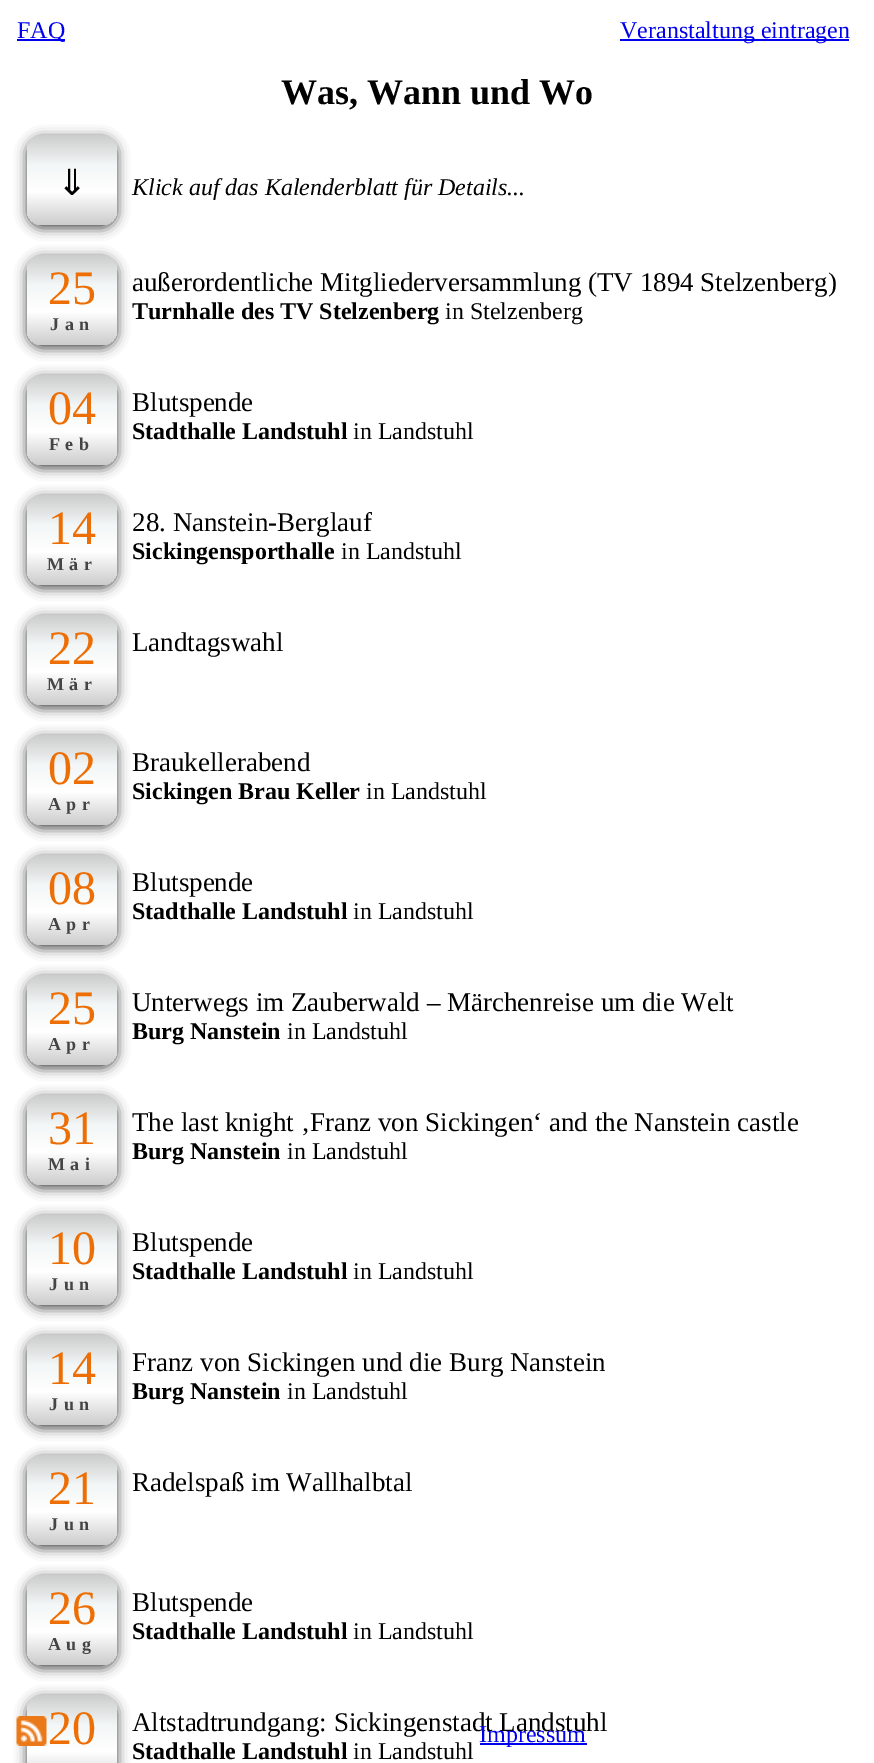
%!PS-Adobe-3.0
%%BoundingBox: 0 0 874 1763
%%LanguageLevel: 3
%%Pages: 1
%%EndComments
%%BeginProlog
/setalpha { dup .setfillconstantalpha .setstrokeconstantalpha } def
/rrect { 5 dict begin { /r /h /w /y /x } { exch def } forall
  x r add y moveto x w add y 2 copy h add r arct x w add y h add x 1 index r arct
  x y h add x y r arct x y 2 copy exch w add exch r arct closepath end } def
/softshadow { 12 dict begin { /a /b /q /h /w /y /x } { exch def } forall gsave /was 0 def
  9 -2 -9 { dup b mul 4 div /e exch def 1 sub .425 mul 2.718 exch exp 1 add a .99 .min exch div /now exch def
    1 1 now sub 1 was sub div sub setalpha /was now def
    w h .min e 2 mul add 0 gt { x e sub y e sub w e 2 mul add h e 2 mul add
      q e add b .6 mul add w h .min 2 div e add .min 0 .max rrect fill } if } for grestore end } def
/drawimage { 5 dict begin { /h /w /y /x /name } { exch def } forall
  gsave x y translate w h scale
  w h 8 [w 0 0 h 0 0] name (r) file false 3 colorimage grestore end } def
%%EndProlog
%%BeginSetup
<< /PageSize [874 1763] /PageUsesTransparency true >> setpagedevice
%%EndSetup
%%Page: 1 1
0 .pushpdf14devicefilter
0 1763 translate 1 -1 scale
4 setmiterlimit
1 setgray
0 0 874 1763 rectfill
0 0 0.933 setrgbcolor
17 39 48 2 rectfill
620 39 229 2 rectfill
0.267 setgray
27 138 90 90 15 6 1 softshadow
gsave 27 135 90 90 15 rrect clip newpath
<< /ShadingType 2 /ColorSpace /DeviceRGB /Coords [72 135 72 225] /Extend [true true] /Function << /FunctionType 3 /Domain [0 1] /Functions [<< /FunctionType 2 /Domain [0 1] /C0 [0.8 0.8 0.8] /C1 [0.957 0.969 0.969] /N 1 >> << /FunctionType 2 /Domain [0 1] /C0 [0.957 0.969 0.969] /C1 [1 1 1] /N 1 >> << /FunctionType 2 /Domain [0 1] /C0 [1 1 1] /C1 [0.8 0.8 0.8] /N 1 >>] /Bounds [0.34 0.63] /Encode [0 1 0 1 0 1] >> >> shfill grestore
27 258 90 90 15 6 1 softshadow
gsave 27 255 90 90 15 rrect clip newpath
<< /ShadingType 2 /ColorSpace /DeviceRGB /Coords [72 255 72 345] /Extend [true true] /Function << /FunctionType 3 /Domain [0 1] /Functions [<< /FunctionType 2 /Domain [0 1] /C0 [0.8 0.8 0.8] /C1 [0.957 0.969 0.969] /N 1 >> << /FunctionType 2 /Domain [0 1] /C0 [0.957 0.969 0.969] /C1 [1 1 1] /N 1 >> << /FunctionType 2 /Domain [0 1] /C0 [1 1 1] /C1 [0.8 0.8 0.8] /N 1 >>] /Bounds [0.34 0.63] /Encode [0 1 0 1 0 1] >> >> shfill grestore
27 378 90 90 15 6 1 softshadow
gsave 27 375 90 90 15 rrect clip newpath
<< /ShadingType 2 /ColorSpace /DeviceRGB /Coords [72 375 72 465] /Extend [true true] /Function << /FunctionType 3 /Domain [0 1] /Functions [<< /FunctionType 2 /Domain [0 1] /C0 [0.8 0.8 0.8] /C1 [0.957 0.969 0.969] /N 1 >> << /FunctionType 2 /Domain [0 1] /C0 [0.957 0.969 0.969] /C1 [1 1 1] /N 1 >> << /FunctionType 2 /Domain [0 1] /C0 [1 1 1] /C1 [0.8 0.8 0.8] /N 1 >>] /Bounds [0.34 0.63] /Encode [0 1 0 1 0 1] >> >> shfill grestore
27 498 90 90 15 6 1 softshadow
gsave 27 495 90 90 15 rrect clip newpath
<< /ShadingType 2 /ColorSpace /DeviceRGB /Coords [72 495 72 585] /Extend [true true] /Function << /FunctionType 3 /Domain [0 1] /Functions [<< /FunctionType 2 /Domain [0 1] /C0 [0.8 0.8 0.8] /C1 [0.957 0.969 0.969] /N 1 >> << /FunctionType 2 /Domain [0 1] /C0 [0.957 0.969 0.969] /C1 [1 1 1] /N 1 >> << /FunctionType 2 /Domain [0 1] /C0 [1 1 1] /C1 [0.8 0.8 0.8] /N 1 >>] /Bounds [0.34 0.63] /Encode [0 1 0 1 0 1] >> >> shfill grestore
27 618 90 90 15 6 1 softshadow
gsave 27 615 90 90 15 rrect clip newpath
<< /ShadingType 2 /ColorSpace /DeviceRGB /Coords [72 615 72 705] /Extend [true true] /Function << /FunctionType 3 /Domain [0 1] /Functions [<< /FunctionType 2 /Domain [0 1] /C0 [0.8 0.8 0.8] /C1 [0.957 0.969 0.969] /N 1 >> << /FunctionType 2 /Domain [0 1] /C0 [0.957 0.969 0.969] /C1 [1 1 1] /N 1 >> << /FunctionType 2 /Domain [0 1] /C0 [1 1 1] /C1 [0.8 0.8 0.8] /N 1 >>] /Bounds [0.34 0.63] /Encode [0 1 0 1 0 1] >> >> shfill grestore
27 738 90 90 15 6 1 softshadow
gsave 27 735 90 90 15 rrect clip newpath
<< /ShadingType 2 /ColorSpace /DeviceRGB /Coords [72 735 72 825] /Extend [true true] /Function << /FunctionType 3 /Domain [0 1] /Functions [<< /FunctionType 2 /Domain [0 1] /C0 [0.8 0.8 0.8] /C1 [0.957 0.969 0.969] /N 1 >> << /FunctionType 2 /Domain [0 1] /C0 [0.957 0.969 0.969] /C1 [1 1 1] /N 1 >> << /FunctionType 2 /Domain [0 1] /C0 [1 1 1] /C1 [0.8 0.8 0.8] /N 1 >>] /Bounds [0.34 0.63] /Encode [0 1 0 1 0 1] >> >> shfill grestore
27 858 90 90 15 6 1 softshadow
gsave 27 855 90 90 15 rrect clip newpath
<< /ShadingType 2 /ColorSpace /DeviceRGB /Coords [72 855 72 945] /Extend [true true] /Function << /FunctionType 3 /Domain [0 1] /Functions [<< /FunctionType 2 /Domain [0 1] /C0 [0.8 0.8 0.8] /C1 [0.957 0.969 0.969] /N 1 >> << /FunctionType 2 /Domain [0 1] /C0 [0.957 0.969 0.969] /C1 [1 1 1] /N 1 >> << /FunctionType 2 /Domain [0 1] /C0 [1 1 1] /C1 [0.8 0.8 0.8] /N 1 >>] /Bounds [0.34 0.63] /Encode [0 1 0 1 0 1] >> >> shfill grestore
27 978 90 90 15 6 1 softshadow
gsave 27 975 90 90 15 rrect clip newpath
<< /ShadingType 2 /ColorSpace /DeviceRGB /Coords [72 975 72 1065] /Extend [true true] /Function << /FunctionType 3 /Domain [0 1] /Functions [<< /FunctionType 2 /Domain [0 1] /C0 [0.8 0.8 0.8] /C1 [0.957 0.969 0.969] /N 1 >> << /FunctionType 2 /Domain [0 1] /C0 [0.957 0.969 0.969] /C1 [1 1 1] /N 1 >> << /FunctionType 2 /Domain [0 1] /C0 [1 1 1] /C1 [0.8 0.8 0.8] /N 1 >>] /Bounds [0.34 0.63] /Encode [0 1 0 1 0 1] >> >> shfill grestore
27 1098 90 90 15 6 1 softshadow
gsave 27 1095 90 90 15 rrect clip newpath
<< /ShadingType 2 /ColorSpace /DeviceRGB /Coords [72 1095 72 1185] /Extend [true true] /Function << /FunctionType 3 /Domain [0 1] /Functions [<< /FunctionType 2 /Domain [0 1] /C0 [0.8 0.8 0.8] /C1 [0.957 0.969 0.969] /N 1 >> << /FunctionType 2 /Domain [0 1] /C0 [0.957 0.969 0.969] /C1 [1 1 1] /N 1 >> << /FunctionType 2 /Domain [0 1] /C0 [1 1 1] /C1 [0.8 0.8 0.8] /N 1 >>] /Bounds [0.34 0.63] /Encode [0 1 0 1 0 1] >> >> shfill grestore
27 1218 90 90 15 6 1 softshadow
gsave 27 1215 90 90 15 rrect clip newpath
<< /ShadingType 2 /ColorSpace /DeviceRGB /Coords [72 1215 72 1305] /Extend [true true] /Function << /FunctionType 3 /Domain [0 1] /Functions [<< /FunctionType 2 /Domain [0 1] /C0 [0.8 0.8 0.8] /C1 [0.957 0.969 0.969] /N 1 >> << /FunctionType 2 /Domain [0 1] /C0 [0.957 0.969 0.969] /C1 [1 1 1] /N 1 >> << /FunctionType 2 /Domain [0 1] /C0 [1 1 1] /C1 [0.8 0.8 0.8] /N 1 >>] /Bounds [0.34 0.63] /Encode [0 1 0 1 0 1] >> >> shfill grestore
27 1338 90 90 15 6 1 softshadow
gsave 27 1335 90 90 15 rrect clip newpath
<< /ShadingType 2 /ColorSpace /DeviceRGB /Coords [72 1335 72 1425] /Extend [true true] /Function << /FunctionType 3 /Domain [0 1] /Functions [<< /FunctionType 2 /Domain [0 1] /C0 [0.8 0.8 0.8] /C1 [0.957 0.969 0.969] /N 1 >> << /FunctionType 2 /Domain [0 1] /C0 [0.957 0.969 0.969] /C1 [1 1 1] /N 1 >> << /FunctionType 2 /Domain [0 1] /C0 [1 1 1] /C1 [0.8 0.8 0.8] /N 1 >>] /Bounds [0.34 0.63] /Encode [0 1 0 1 0 1] >> >> shfill grestore
27 1458 90 90 15 6 1 softshadow
gsave 27 1455 90 90 15 rrect clip newpath
<< /ShadingType 2 /ColorSpace /DeviceRGB /Coords [72 1455 72 1545] /Extend [true true] /Function << /FunctionType 3 /Domain [0 1] /Functions [<< /FunctionType 2 /Domain [0 1] /C0 [0.8 0.8 0.8] /C1 [0.957 0.969 0.969] /N 1 >> << /FunctionType 2 /Domain [0 1] /C0 [0.957 0.969 0.969] /C1 [1 1 1] /N 1 >> << /FunctionType 2 /Domain [0 1] /C0 [1 1 1] /C1 [0.8 0.8 0.8] /N 1 >>] /Bounds [0.34 0.63] /Encode [0 1 0 1 0 1] >> >> shfill grestore
27 1578 90 90 15 6 1 softshadow
gsave 27 1575 90 90 15 rrect clip newpath
<< /ShadingType 2 /ColorSpace /DeviceRGB /Coords [72 1575 72 1665] /Extend [true true] /Function << /FunctionType 3 /Domain [0 1] /Functions [<< /FunctionType 2 /Domain [0 1] /C0 [0.8 0.8 0.8] /C1 [0.957 0.969 0.969] /N 1 >> << /FunctionType 2 /Domain [0 1] /C0 [0.957 0.969 0.969] /C1 [1 1 1] /N 1 >> << /FunctionType 2 /Domain [0 1] /C0 [1 1 1] /C1 [0.8 0.8 0.8] /N 1 >>] /Bounds [0.34 0.63] /Encode [0 1 0 1 0 1] >> >> shfill grestore
27 1698 90 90 15 6 1 softshadow
gsave 27 1695 90 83 15 rrect clip newpath
<< /ShadingType 2 /ColorSpace /DeviceRGB /Coords [72 1695 72 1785] /Extend [true true] /Function << /FunctionType 3 /Domain [0 1] /Functions [<< /FunctionType 2 /Domain [0 1] /C0 [0.8 0.8 0.8] /C1 [0.957 0.969 0.969] /N 1 >> << /FunctionType 2 /Domain [0 1] /C0 [0.957 0.969 0.969] /C1 [1 1 1] /N 1 >> << /FunctionType 2 /Domain [0 1] /C0 [1 1 1] /C1 [0.8 0.8 0.8] /N 1 >>] /Bounds [0.34 0.63] /Encode [0 1 0 1 0 1] >> >> shfill grestore
(images/1.raw) 16 1716 31 30 drawimage
0 0 0.933 setrgbcolor
480 1743 107 2 rectfill
/LiberationSerif-Regular [24 0 0 -24 0 0] selectfont
17 38 moveto (FAQ) show
620 38 moveto (Veranstaltung eintragen) show
/LiberationSerif-Bold [36 0 0 -36 0 0] selectfont
0 setgray
281 104 moveto (Was, Wann und Wo) show
/DejaVuSans-Regular [36 0 0 -36 0 0] selectfont
57 195 moveto (⇓) show
/LiberationSerif-Italic [24 0 0 -24 0 0] selectfont
132 195 moveto (Klick auf das Kalenderblatt für Details...) show
/LiberationSerif-Regular [48 0 0 -48 0 0] selectfont
0.925 0.431 0.016 setrgbcolor
48 304 moveto (25) show
/LiberationSerif-Bold [18 0 0 -18 0 0] selectfont
0.267 setgray
50 330 moveto 5.5 0 (Jan) ashow
/LiberationSerif-Regular [27 0 0 -27 0 0] selectfont
0 setgray
132 291 moveto (außerordentliche Mitgliederversammlung \(TV 1894 Stelzenberg\)) show
/LiberationSerif-Bold [24 0 0 -24 0 0] selectfont
132 319 moveto (Turnhalle des TV Stelzenberg) show
/LiberationSerif-Regular [24 0 0 -24 0 0] selectfont
445 319 moveto (in Stelzenberg) show
/LiberationSerif-Regular [48 0 0 -48 0 0] selectfont
0.925 0.431 0.016 setrgbcolor
48 424 moveto (04) show
/LiberationSerif-Bold [18 0 0 -18 0 0] selectfont
0.267 setgray
49 450 moveto 5.5 0 (Feb) ashow
/LiberationSerif-Regular [27 0 0 -27 0 0] selectfont
0 setgray
132 411 moveto (Blutspende) show
/LiberationSerif-Bold [24 0 0 -24 0 0] selectfont
132 439 moveto (Stadthalle Landstuhl) show
/LiberationSerif-Regular [24 0 0 -24 0 0] selectfont
353 439 moveto (in Landstuhl) show
/LiberationSerif-Regular [48 0 0 -48 0 0] selectfont
0.925 0.431 0.016 setrgbcolor
48 544 moveto (14) show
/LiberationSerif-Bold [18 0 0 -18 0 0] selectfont
0.267 setgray
47 570 moveto 5.5 0 (Mär) ashow
/LiberationSerif-Regular [27 0 0 -27 0 0] selectfont
0 setgray
132 531 moveto (28. Nanstein-Berglauf) show
/LiberationSerif-Bold [24 0 0 -24 0 0] selectfont
132 559 moveto (Sickingensporthalle) show
/LiberationSerif-Regular [24 0 0 -24 0 0] selectfont
341 559 moveto (in Landstuhl) show
/LiberationSerif-Regular [48 0 0 -48 0 0] selectfont
0.925 0.431 0.016 setrgbcolor
48 664 moveto (22) show
/LiberationSerif-Bold [18 0 0 -18 0 0] selectfont
0.267 setgray
47 690 moveto 5.5 0 (Mär) ashow
/LiberationSerif-Regular [27 0 0 -27 0 0] selectfont
0 setgray
132 651 moveto (Landtagswahl) show
/LiberationSerif-Regular [48 0 0 -48 0 0] selectfont
0.925 0.431 0.016 setrgbcolor
48 784 moveto (02) show
/LiberationSerif-Bold [18 0 0 -18 0 0] selectfont
0.267 setgray
48 810 moveto 5.5 0 (Apr) ashow
/LiberationSerif-Regular [27 0 0 -27 0 0] selectfont
0 setgray
132 771 moveto (Braukellerabend) show
/LiberationSerif-Bold [24 0 0 -24 0 0] selectfont
132 799 moveto (Sickingen Brau Keller) show
/LiberationSerif-Regular [24 0 0 -24 0 0] selectfont
366 799 moveto (in Landstuhl) show
/LiberationSerif-Regular [48 0 0 -48 0 0] selectfont
0.925 0.431 0.016 setrgbcolor
48 904 moveto (08) show
/LiberationSerif-Bold [18 0 0 -18 0 0] selectfont
0.267 setgray
48 930 moveto 5.5 0 (Apr) ashow
/LiberationSerif-Regular [27 0 0 -27 0 0] selectfont
0 setgray
132 891 moveto (Blutspende) show
/LiberationSerif-Bold [24 0 0 -24 0 0] selectfont
132 919 moveto (Stadthalle Landstuhl) show
/LiberationSerif-Regular [24 0 0 -24 0 0] selectfont
353 919 moveto (in Landstuhl) show
/LiberationSerif-Regular [48 0 0 -48 0 0] selectfont
0.925 0.431 0.016 setrgbcolor
48 1024 moveto (25) show
/LiberationSerif-Bold [18 0 0 -18 0 0] selectfont
0.267 setgray
48 1050 moveto 5.5 0 (Apr) ashow
/LiberationSerif-Regular [27 0 0 -27 0 0] selectfont
0 setgray
132 1011 moveto (Unterwegs im Zauberwald – Märchenreise um die Welt) show
/LiberationSerif-Bold [24 0 0 -24 0 0] selectfont
132 1039 moveto (Burg Nanstein) show
/LiberationSerif-Regular [24 0 0 -24 0 0] selectfont
287 1039 moveto (in Landstuhl) show
/LiberationSerif-Regular [48 0 0 -48 0 0] selectfont
0.925 0.431 0.016 setrgbcolor
48 1144 moveto (31) show
/LiberationSerif-Bold [18 0 0 -18 0 0] selectfont
0.267 setgray
48 1170 moveto 5.5 0 (Mai) ashow
/LiberationSerif-Regular [27 0 0 -27 0 0] selectfont
0 setgray
132 1131 moveto (The last knight ‚Franz von Sickingen‘ and the Nanstein castle) show
/LiberationSerif-Bold [24 0 0 -24 0 0] selectfont
132 1159 moveto (Burg Nanstein) show
/LiberationSerif-Regular [24 0 0 -24 0 0] selectfont
287 1159 moveto (in Landstuhl) show
/LiberationSerif-Regular [48 0 0 -48 0 0] selectfont
0.925 0.431 0.016 setrgbcolor
48 1264 moveto (10) show
/LiberationSerif-Bold [18 0 0 -18 0 0] selectfont
0.267 setgray
49 1290 moveto 5.5 0 (Jun) ashow
/LiberationSerif-Regular [27 0 0 -27 0 0] selectfont
0 setgray
132 1251 moveto (Blutspende) show
/LiberationSerif-Bold [24 0 0 -24 0 0] selectfont
132 1279 moveto (Stadthalle Landstuhl) show
/LiberationSerif-Regular [24 0 0 -24 0 0] selectfont
353 1279 moveto (in Landstuhl) show
/LiberationSerif-Regular [48 0 0 -48 0 0] selectfont
0.925 0.431 0.016 setrgbcolor
48 1384 moveto (14) show
/LiberationSerif-Bold [18 0 0 -18 0 0] selectfont
0.267 setgray
49 1410 moveto 5.5 0 (Jun) ashow
/LiberationSerif-Regular [27 0 0 -27 0 0] selectfont
0 setgray
132 1371 moveto (Franz von Sickingen und die Burg Nanstein) show
/LiberationSerif-Bold [24 0 0 -24 0 0] selectfont
132 1399 moveto (Burg Nanstein) show
/LiberationSerif-Regular [24 0 0 -24 0 0] selectfont
287 1399 moveto (in Landstuhl) show
/LiberationSerif-Regular [48 0 0 -48 0 0] selectfont
0.925 0.431 0.016 setrgbcolor
48 1504 moveto (21) show
/LiberationSerif-Bold [18 0 0 -18 0 0] selectfont
0.267 setgray
49 1530 moveto 5.5 0 (Jun) ashow
/LiberationSerif-Regular [27 0 0 -27 0 0] selectfont
0 setgray
132 1491 moveto (Radelspaß im Wallhalbtal) show
/LiberationSerif-Regular [48 0 0 -48 0 0] selectfont
0.925 0.431 0.016 setrgbcolor
48 1624 moveto (26) show
/LiberationSerif-Bold [18 0 0 -18 0 0] selectfont
0.267 setgray
48 1650 moveto 5.5 0 (Aug) ashow
/LiberationSerif-Regular [27 0 0 -27 0 0] selectfont
0 setgray
132 1611 moveto (Blutspende) show
/LiberationSerif-Bold [24 0 0 -24 0 0] selectfont
132 1639 moveto (Stadthalle Landstuhl) show
/LiberationSerif-Regular [24 0 0 -24 0 0] selectfont
353 1639 moveto (in Landstuhl) show
/LiberationSerif-Regular [48 0 0 -48 0 0] selectfont
0.925 0.431 0.016 setrgbcolor
48 1744 moveto (20) show
/LiberationSerif-Regular [27 0 0 -27 0 0] selectfont
0 setgray
132 1731 moveto (Altstadtrundgang: Sickingenstadt Landstuhl) show
/LiberationSerif-Regular [24 0 0 -24 0 0] selectfont
0 0 0.933 setrgbcolor
479 1742 moveto (Impressum) show
/LiberationSerif-Bold [24 0 0 -24 0 0] selectfont
0 setgray
132 1759 moveto (Stadthalle Landstuhl) show
/LiberationSerif-Regular [24 0 0 -24 0 0] selectfont
353 1759 moveto (in Landstuhl) show
.poppdf14devicefilter showpage
%%EOF
